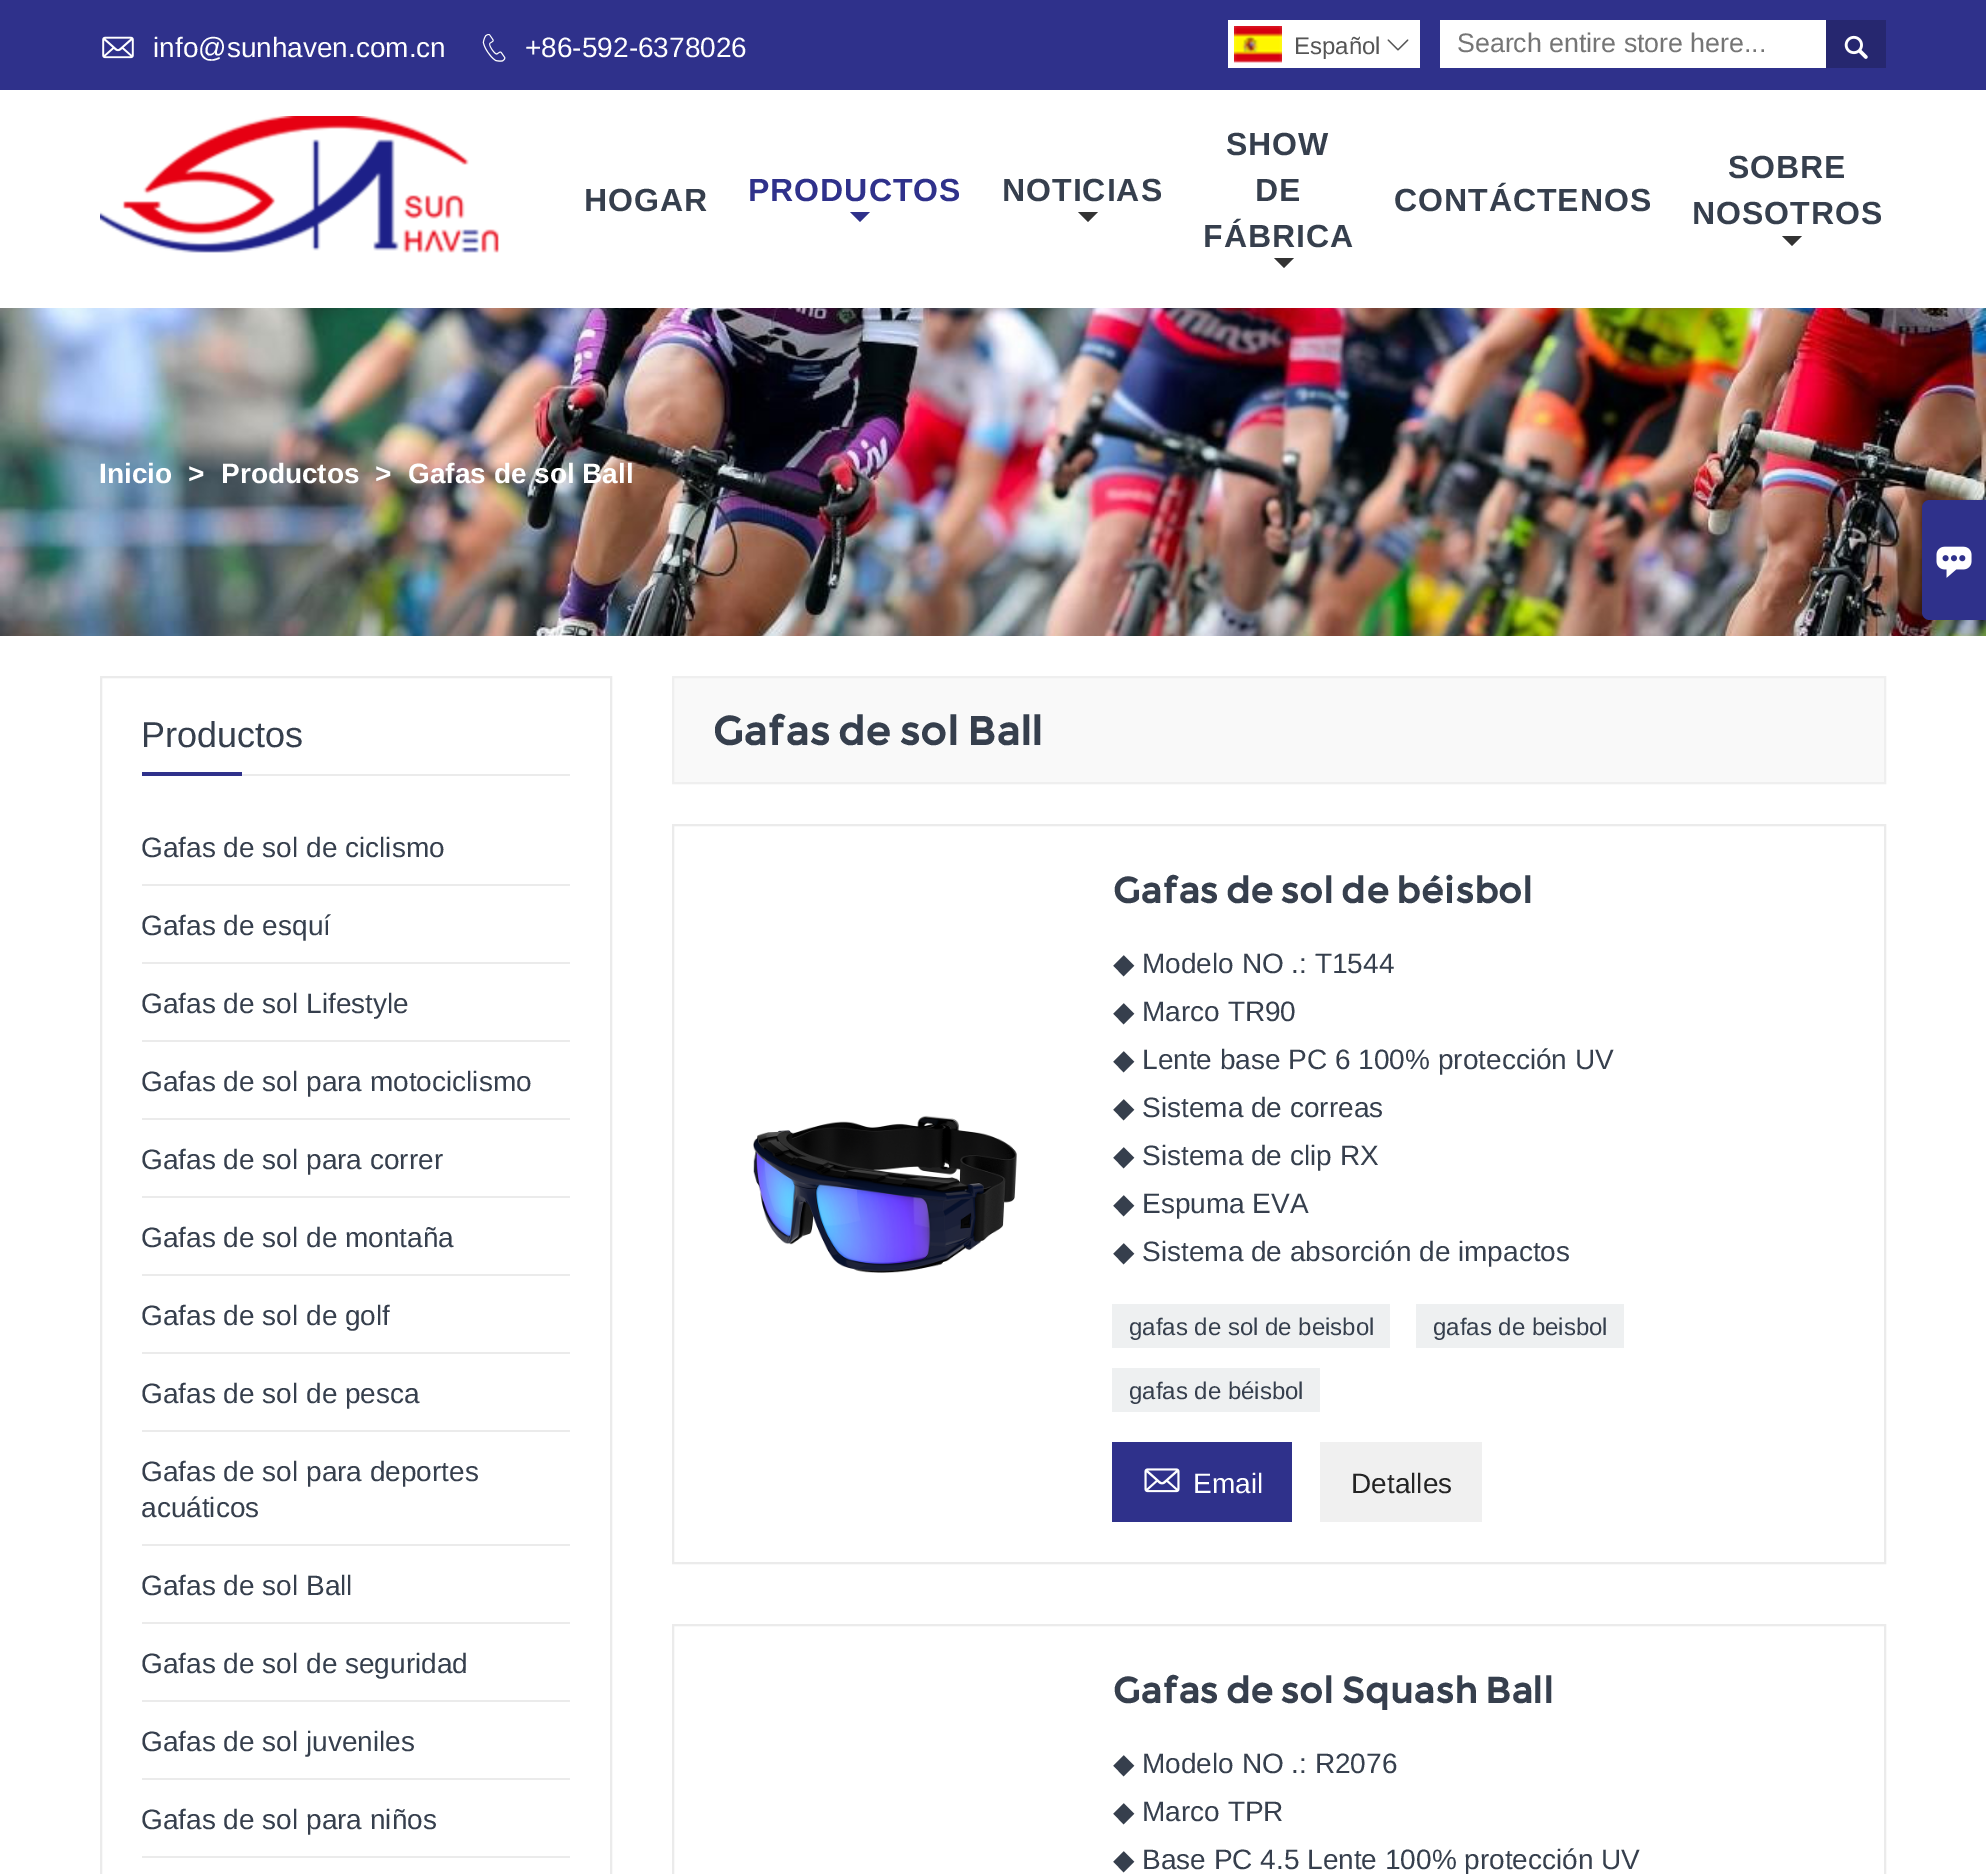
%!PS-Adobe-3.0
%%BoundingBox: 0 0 1986 1874
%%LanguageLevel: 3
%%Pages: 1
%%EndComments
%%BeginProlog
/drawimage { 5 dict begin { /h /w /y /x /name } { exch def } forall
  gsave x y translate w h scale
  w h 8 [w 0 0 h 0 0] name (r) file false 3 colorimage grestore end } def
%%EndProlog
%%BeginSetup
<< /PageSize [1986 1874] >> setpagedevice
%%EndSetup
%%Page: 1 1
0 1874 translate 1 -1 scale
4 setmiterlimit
1 setgray
0 0 1986 1874 rectfill
0.184 0.192 0.545 setrgbcolor
0 0 1986 90 rectfill
(images/1.raw) 102 36 32 23 drawimage
(images/2.raw) 482 34 24 28 drawimage
1 setgray
1228 20 192 48 rectfill
(images/3.raw) 1234 26 48 37 drawimage
(images/4.raw) 1387 39 22 12 drawimage
1440 20 386 48 rectfill
0.149 0.153 0.435 setrgbcolor
1826 20 60 48 rectfill
(images/5.raw) 1844 35 24 24 drawimage
(images/6.raw) 100 116 399 137 drawimage
0.184 0.192 0.545 setrgbcolor
newpath 850 212 moveto 870 212 lineto 860 222 lineto closepath fill
0.2 setgray
newpath 1078 212 moveto 1098 212 lineto 1088 222 lineto closepath fill
newpath 1274 258 moveto 1294 258 lineto 1284 268 lineto closepath fill
newpath 1782 236 moveto 1802 236 lineto 1792 246 lineto closepath fill
(images/7.raw) 0 308 1986 328 drawimage
0.922 setgray
2 setlinewidth
101 677 510 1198 rectstroke
242 774 328 2 rectfill
0.184 0.192 0.545 setrgbcolor
142 772 100 4 rectfill
0.922 setgray
142 884 428 2 rectfill
142 962 428 2 rectfill
142 1040 428 2 rectfill
142 1118 428 2 rectfill
142 1196 428 2 rectfill
142 1274 428 2 rectfill
142 1352 428 2 rectfill
142 1430 428 2 rectfill
142 1544 428 2 rectfill
142 1622 428 2 rectfill
142 1700 428 2 rectfill
142 1778 428 2 rectfill
142 1856 428 2 rectfill
0.976 setgray
newpath 673 677 moveto 1885 677 lineto 1885 783 lineto 673 783 lineto closepath gsave fill grestore
0.937 setgray
stroke
0.922 setgray
673 825 1212 738 rectstroke
(images/8.raw) 753 1115 264 158 drawimage
0.933 0.941 0.945 setrgbcolor
1112 1304 278 44 rectfill
1416 1304 208 44 rectfill
1112 1368 208 44 rectfill
0.184 0.192 0.545 setrgbcolor
1112 1442 180 80 rectfill
(images/9.raw) 1144 1468 36 25 drawimage
0.941 setgray
1320 1442 162 80 rectfill
0.922 setgray
673 1625 1212 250 rectstroke
0.184 0.192 0.545 setrgbcolor
newpath 1930 500 moveto 1986 500 lineto 1986 620 lineto 1930 620 lineto 1925.5 620 1922 616.5 1922 612 curveto 1922 508 lineto 1922 503.5 1925.5 500 1930 500 curveto closepath fill
(images/10.raw) 1936 546 36 32 drawimage
/LiberationSans-Regular [28 0 0 -28 0 0] selectfont
1 setgray
153 57 moveto (info@sunhaven.com.cn) show
525 57 moveto (+86-592-6378026) show
/LiberationSans-Regular [24 0 0 -24 0 0] selectfont
0.333 setgray
1294 54 moveto (Español) show
/LiberationSans-Regular [26.75 0 0 -26.75 0 0] selectfont
0.459 setgray
1457 52 moveto (Search entire store here...) show
/LiberationSans-Bold [32 0 0 -32 0 0] selectfont
0.212 0.247 0.302 setrgbcolor
584 211 moveto 1 0 (HOGAR) ashow
0.184 0.192 0.545 setrgbcolor
748 201 moveto 1 0 (PRODUCTOS) ashow
0.212 0.247 0.302 setrgbcolor
1002 201 moveto 1 0 (NOTICIAS) ashow
1226 155 moveto 1 0 (SHOW) ashow
1255 201 moveto 1 0 (DE) ashow
1203 247 moveto 1 0 (FÁBRICA) ashow
1394 211 moveto 1 0 (CONTÁCTENOS) ashow
1728 178 moveto 1 0 (SOBRE) ashow
1692 224 moveto 1 0 (NOSOTROS) ashow
/LiberationSans-Bold [28 0 0 -28 0 0] selectfont
1 setgray
99 483 moveto (Inicio) show
188 483 moveto (>) show
221 483 moveto (Productos) show
375 483 moveto (>) show
408 483 moveto (Gafas de sol Ball) show
/LiberationSans-Regular [36 0 0 -36 0 0] selectfont
0.212 0.247 0.302 setrgbcolor
141 747 moveto (Productos) show
/LiberationSans-Regular [28 0 0 -28 0 0] selectfont
141 857 moveto (Gafas de sol de ciclismo) show
141 935 moveto (Gafas de esquí) show
141 1013 moveto (Gafas de sol Lifestyle) show
141 1091 moveto (Gafas de sol para motociclismo) show
141 1169 moveto (Gafas de sol para correr) show
141 1247 moveto (Gafas de sol de montaña) show
141 1325 moveto (Gafas de sol de golf) show
141 1403 moveto (Gafas de sol de pesca) show
141 1481 moveto (Gafas de sol para deportes) show
141 1517 moveto (acuáticos) show
141 1595 moveto (Gafas de sol Ball) show
141 1673 moveto (Gafas de sol de seguridad) show
141 1751 moveto (Gafas de sol juveniles) show
141 1829 moveto (Gafas de sol para niños) show
/Montserrat-Bold [40 0 0 -40 0 0] selectfont
713 745 moveto (Gafas de sol Ball) show
/Montserrat-Bold [36 0 0 -36 0 0] selectfont
1113 903 moveto (Gafas de sol de béisbol) show
/DejaVuSans-Regular [28 0 0 -28 0 0] selectfont
1113 973 moveto (◆) show
/LiberationSans-Regular [28 0 0 -28 0 0] selectfont
1142 973 moveto (Modelo NO .: T1544) show
/DejaVuSans-Regular [28 0 0 -28 0 0] selectfont
1113 1021 moveto (◆) show
/LiberationSans-Regular [28 0 0 -28 0 0] selectfont
1142 1021 moveto (Marco TR90) show
/DejaVuSans-Regular [28 0 0 -28 0 0] selectfont
1113 1069 moveto (◆) show
/LiberationSans-Regular [28 0 0 -28 0 0] selectfont
1142 1069 moveto (Lente base PC 6 100% protección UV) show
/DejaVuSans-Regular [28 0 0 -28 0 0] selectfont
1113 1117 moveto (◆) show
/LiberationSans-Regular [28 0 0 -28 0 0] selectfont
1142 1117 moveto (Sistema de correas) show
/DejaVuSans-Regular [28 0 0 -28 0 0] selectfont
1113 1165 moveto (◆) show
/LiberationSans-Regular [28 0 0 -28 0 0] selectfont
1142 1165 moveto (Sistema de clip RX) show
/DejaVuSans-Regular [28 0 0 -28 0 0] selectfont
1113 1213 moveto (◆) show
/LiberationSans-Regular [28 0 0 -28 0 0] selectfont
1142 1213 moveto (Espuma EVA) show
/DejaVuSans-Regular [28 0 0 -28 0 0] selectfont
1113 1261 moveto (◆) show
/LiberationSans-Regular [28 0 0 -28 0 0] selectfont
1142 1261 moveto (Sistema de absorción de impactos) show
/LiberationSans-Regular [24 0 0 -24 0 0] selectfont
1129 1335 moveto (gafas de sol de beisbol) show
1433 1335 moveto (gafas de beisbol) show
1129 1399 moveto (gafas de béisbol) show
/LiberationSans-Regular [28 0 0 -28 0 0] selectfont
1 setgray
1193 1493 moveto (Email) show
0.141 setgray
1351 1493 moveto (Detalles) show
/Montserrat-Bold [36 0 0 -36 0 0] selectfont
0.212 0.247 0.302 setrgbcolor
1113 1703 moveto (Gafas de sol Squash Ball) show
/DejaVuSans-Regular [28 0 0 -28 0 0] selectfont
1113 1773 moveto (◆) show
/LiberationSans-Regular [28 0 0 -28 0 0] selectfont
1142 1773 moveto (Modelo NO .: R2076) show
/DejaVuSans-Regular [28 0 0 -28 0 0] selectfont
1113 1821 moveto (◆) show
/LiberationSans-Regular [28 0 0 -28 0 0] selectfont
1142 1821 moveto (Marco TPR) show
/DejaVuSans-Regular [28 0 0 -28 0 0] selectfont
1113 1869 moveto (◆) show
/LiberationSans-Regular [28 0 0 -28 0 0] selectfont
1142 1869 moveto (Base PC 4.5 Lente 100% protección UV) show
showpage
%%EOF
